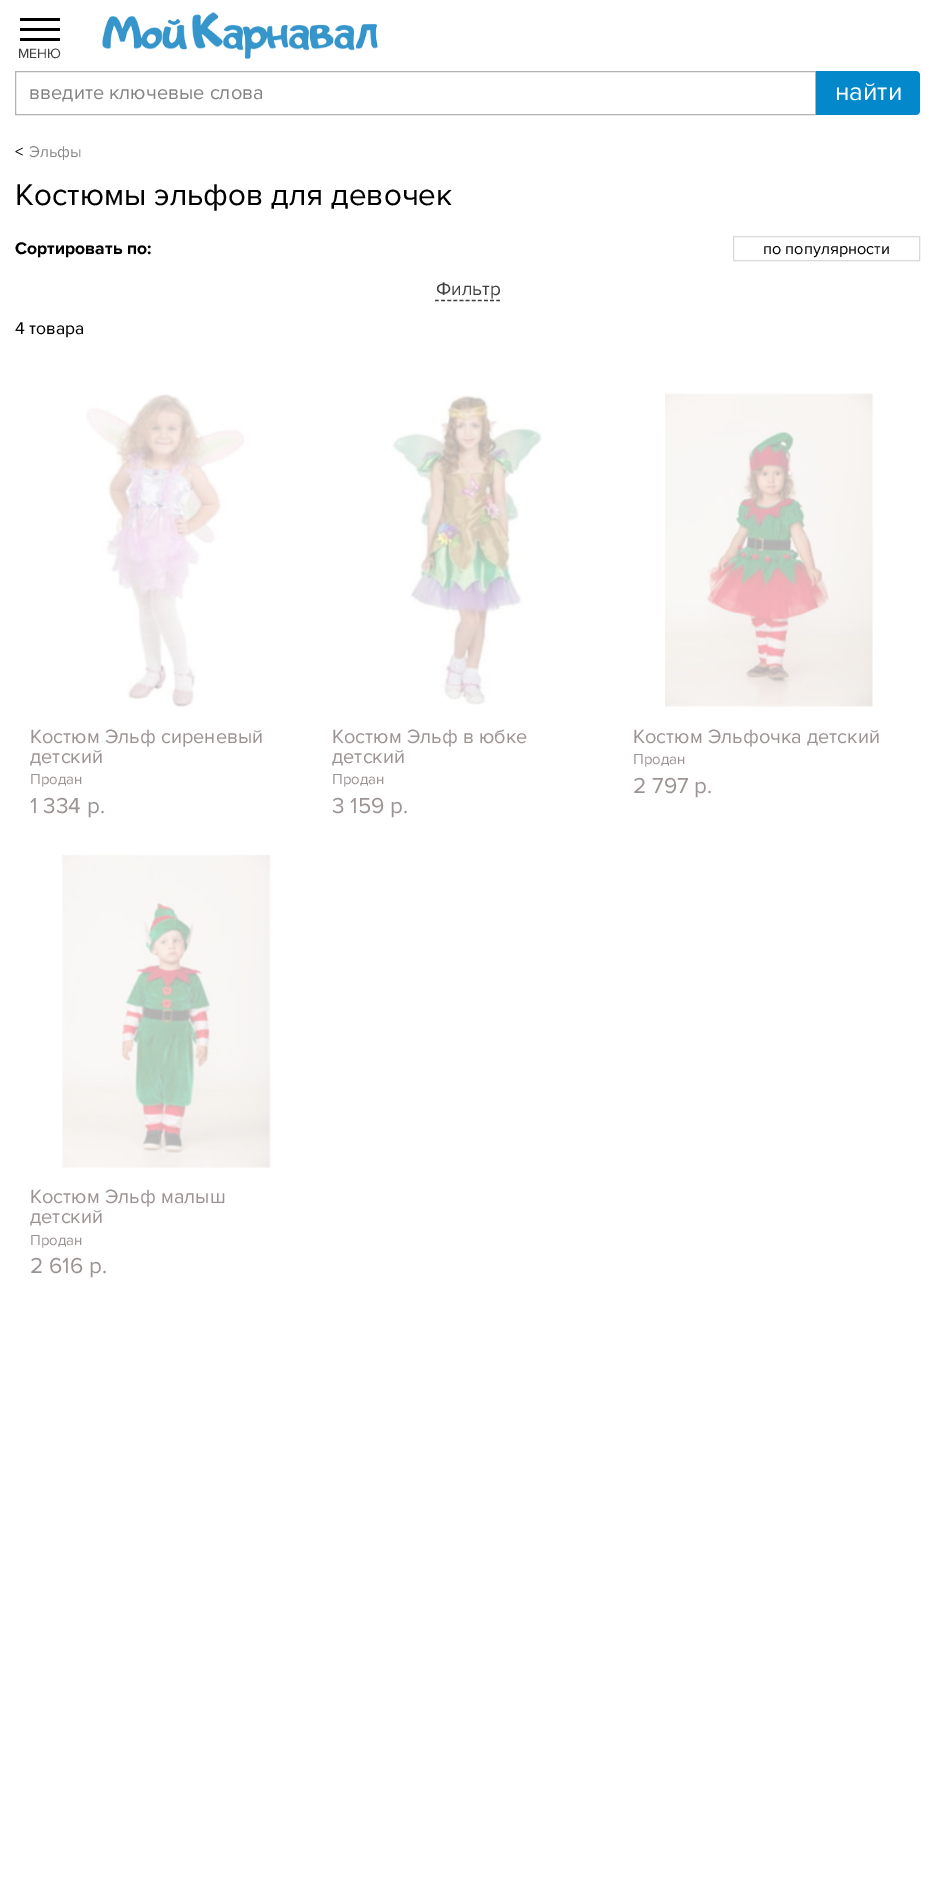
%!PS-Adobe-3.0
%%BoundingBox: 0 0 934 1899
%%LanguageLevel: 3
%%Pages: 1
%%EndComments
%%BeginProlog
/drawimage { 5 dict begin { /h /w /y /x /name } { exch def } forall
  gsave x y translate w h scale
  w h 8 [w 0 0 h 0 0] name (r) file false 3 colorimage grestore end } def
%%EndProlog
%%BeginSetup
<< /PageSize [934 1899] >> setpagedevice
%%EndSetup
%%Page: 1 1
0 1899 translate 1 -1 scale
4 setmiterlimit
1 setgray
0 0 934 1899 rectfill
0 setgray
20 38 40 3 rectfill
20 28 40 3 rectfill
20 18 40 3 rectfill
(images/1.raw) 102 12 276 47 drawimage
0.706 0.694 0.694 setrgbcolor
15.5 71.5 800 43 rectstroke
0.012 0.533 0.796 setrgbcolor
newpath 816 71 moveto 916 71 lineto 918 71 920 73 920 75 curveto 920 111 lineto 920 113 918 115 916 115 curveto 816 115 lineto closepath fill
0.855 0.847 0.851 setrgbcolor
733.5 236.5 186 24 rectstroke
0.251 setgray
1.2 setlinewidth
[3.75 2.38] 0 setdash
newpath 435 300.5 moveto 500 300.5 lineto stroke
(images/2.raw) 86 394 159 313 drawimage
(images/3.raw) 392 395 150 310 drawimage
(images/4.raw) 665 393 208 314 drawimage
(images/5.raw) 62 854 209 314 drawimage
/ProximaNova-Regular [14 0 0 -14 0 0] selectfont
18 58 moveto (МЕНЮ) show
/ProximaNova-Regular [20 0 0 -20 0 0] selectfont
0.518 setgray
29 99 moveto (введите ключевые слова) show
/ProximaNova-Regular [26 0 0 -26 0 0] selectfont
1 setgray
835 100 moveto (найти) show
/ProximaNova-Regular [16.25 0 0 -16.25 0 0] selectfont
0 setgray
15 157 moveto (<) show
0.541 setgray
29 157 moveto (Эльфы) show
/ProximaNova-Regular [31.25 0 0 -31.25 0 0] selectfont
0 setgray
15 205 moveto (Костюмы эльфов для девочек) show
/ProximaNova-Bold [17.5 0 0 -17.5 0 0] selectfont
15 254 moveto (Сортировать по:) show
/ProximaNova-Regular [16.25 0 0 -16.25 0 0] selectfont
763 254 moveto (по популярности) show
/ProximaNova-Regular [19 0 0 -19 0 0] selectfont
0.251 setgray
436 295 moveto (Фильтр) show
/ProximaNova-Regular [17.5 0 0 -17.5 0 0] selectfont
0 setgray
15 334 moveto (4 товара) show
/ProximaNova-Regular [20 0 0 -20 0 0] selectfont
0.612 0.576 0.576 setrgbcolor
30 743 moveto (Костюм Эльф сиреневый) show
30 763 moveto (детский) show
/ProximaNova-Regular [15 0 0 -15 0 0] selectfont
30 784 moveto (Продан) show
/ProximaNova-Regular [22.5 0 0 -22.5 0 0] selectfont
30 813 moveto (1 334 р.) show
/ProximaNova-Regular [20 0 0 -20 0 0] selectfont
332 743 moveto (Костюм Эльф в юбке) show
332 763 moveto (детский) show
/ProximaNova-Regular [15 0 0 -15 0 0] selectfont
332 784 moveto (Продан) show
/ProximaNova-Regular [22.5 0 0 -22.5 0 0] selectfont
332 813 moveto (3 159 р.) show
/ProximaNova-Regular [20 0 0 -20 0 0] selectfont
633 743 moveto (Костюм Эльфочка детский) show
/ProximaNova-Regular [15 0 0 -15 0 0] selectfont
633 764 moveto (Продан) show
/ProximaNova-Regular [22.5 0 0 -22.5 0 0] selectfont
633 793 moveto (2 797 р.) show
/ProximaNova-Regular [20 0 0 -20 0 0] selectfont
30 1203 moveto (Костюм Эльф малыш) show
30 1223 moveto (детский) show
/ProximaNova-Regular [15 0 0 -15 0 0] selectfont
30 1245 moveto (Продан) show
/ProximaNova-Regular [22.5 0 0 -22.5 0 0] selectfont
30 1273 moveto (2 616 р.) show
showpage
%%EOF
